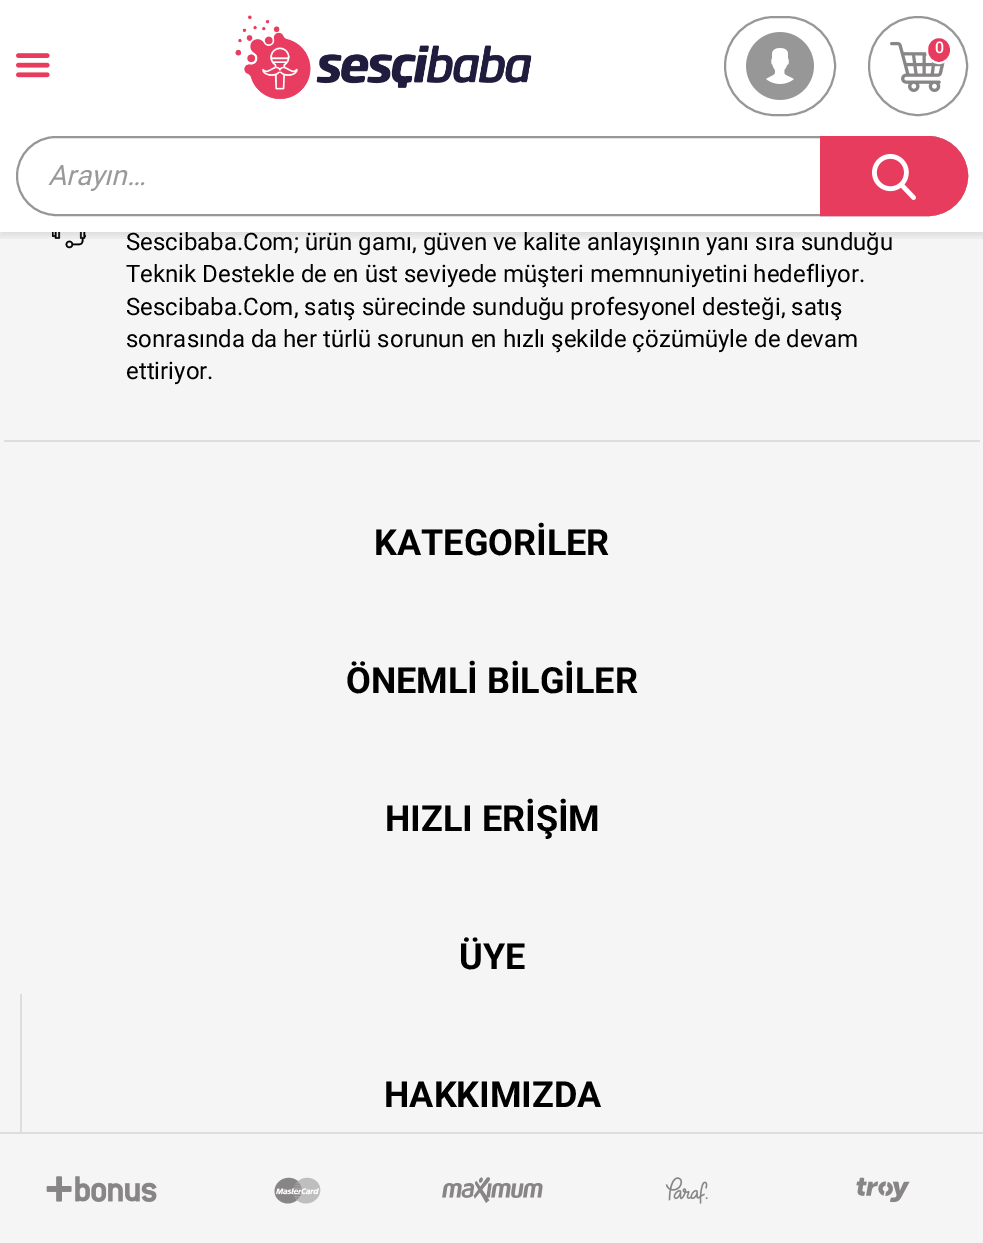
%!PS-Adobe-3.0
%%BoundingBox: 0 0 983 1243
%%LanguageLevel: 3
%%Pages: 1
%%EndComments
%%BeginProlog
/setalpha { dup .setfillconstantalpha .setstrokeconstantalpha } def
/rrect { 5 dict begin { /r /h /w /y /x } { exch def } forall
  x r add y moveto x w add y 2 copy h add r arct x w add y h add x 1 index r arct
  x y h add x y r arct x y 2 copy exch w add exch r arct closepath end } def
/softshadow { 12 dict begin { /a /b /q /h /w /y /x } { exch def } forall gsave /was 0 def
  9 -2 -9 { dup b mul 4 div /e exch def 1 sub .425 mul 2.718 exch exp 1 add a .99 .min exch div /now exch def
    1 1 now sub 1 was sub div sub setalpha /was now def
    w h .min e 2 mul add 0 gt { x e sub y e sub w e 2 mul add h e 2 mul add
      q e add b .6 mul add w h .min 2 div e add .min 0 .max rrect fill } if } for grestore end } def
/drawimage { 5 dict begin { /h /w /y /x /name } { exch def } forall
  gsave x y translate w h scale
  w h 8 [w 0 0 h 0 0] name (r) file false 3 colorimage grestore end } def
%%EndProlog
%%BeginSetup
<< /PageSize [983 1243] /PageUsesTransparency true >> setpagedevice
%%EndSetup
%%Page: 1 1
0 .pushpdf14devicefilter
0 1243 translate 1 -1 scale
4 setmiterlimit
0.961 setgray
0 0 983 1243 rectfill
1 setgray
0 0 983 232 rectfill
(images/6.raw) 52 232 34 17 drawimage
gsave
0 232 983 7 rectclip
0 setgray
0 4 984 232 0 4 0.1 softshadow
grestore
(images/1.raw) 235 15 297 84 drawimage
0.592 setgray
2 setlinewidth
725 17 110 98 49 rrect stroke
(images/2.raw) 746 32 68 68 drawimage
newpath 918 66 49 0 360 arc closepath stroke
(images/3.raw) 890 42 55 50 drawimage
0.91 0.235 0.373 setrgbcolor
927 37 24 26 12 rrect gsave fill grestore
1 setgray
stroke
(images/4.raw) 16 53 34 25 drawimage
0.592 setgray
17 137 950 78 39 rrect stroke
0.91 0.235 0.373 setrgbcolor
newpath 821 137 moveto 928 137 lineto 949.5 137 967 154.5 967 176 curveto 967 197.5 949.5 215 928 215 curveto 821 215 lineto closepath gsave fill grestore
stroke
(images/5.raw) 872 154 44 46 drawimage
0.867 setgray
4 440 976 2 rectfill
20 994 2 138 rectfill
0 1132 983 2 rectfill
(images/7.raw) 46 1176 111 26 drawimage
(images/8.raw) 274 1177 47 27 drawimage
(images/9.raw) 442 1177 101 26 drawimage
(images/10.raw) 665 1177 43 27 drawimage
(images/11.raw) 856 1177 54 26 drawimage
/Roboto-Medium [16 0 0 -16 0 0] selectfont
1 setgray
935 53 moveto (0) show
/Roboto-Italic [28 0 0 -28 0 0] selectfont
0.6 setgray
48 185 moveto (Arayın…) show
/Roboto-Regular [24 0 0 -24 0 0] selectfont
0 setgray
126 250 moveto (Sescibaba.Com; ürün gamı, güven ve kalite anlayışının yanı sıra sunduğu) show
126 282 moveto (Teknik Destekle de en üst seviyede müşteri memnuniyetini hedefliyor.) show
126 315 moveto (Sescibaba.Com, satış sürecinde sunduğu profesyonel desteği, satış) show
126 347 moveto (sonrasında da her türlü sorunun en hızlı şekilde çözümüyle de devam) show
126 379 moveto (ettiriyor.) show
/Roboto-Bold [36 0 0 -36 0 0] selectfont
374 555 moveto (KATEGORİLER) show
346 693 moveto (ÖNEMLİ BİLGİLER) show
385 831 moveto (HIZLI ERİŞİM) show
459 969 moveto (ÜYE) show
384 1107 moveto (HAKKIMIZDA) show
.poppdf14devicefilter showpage
%%EOF
